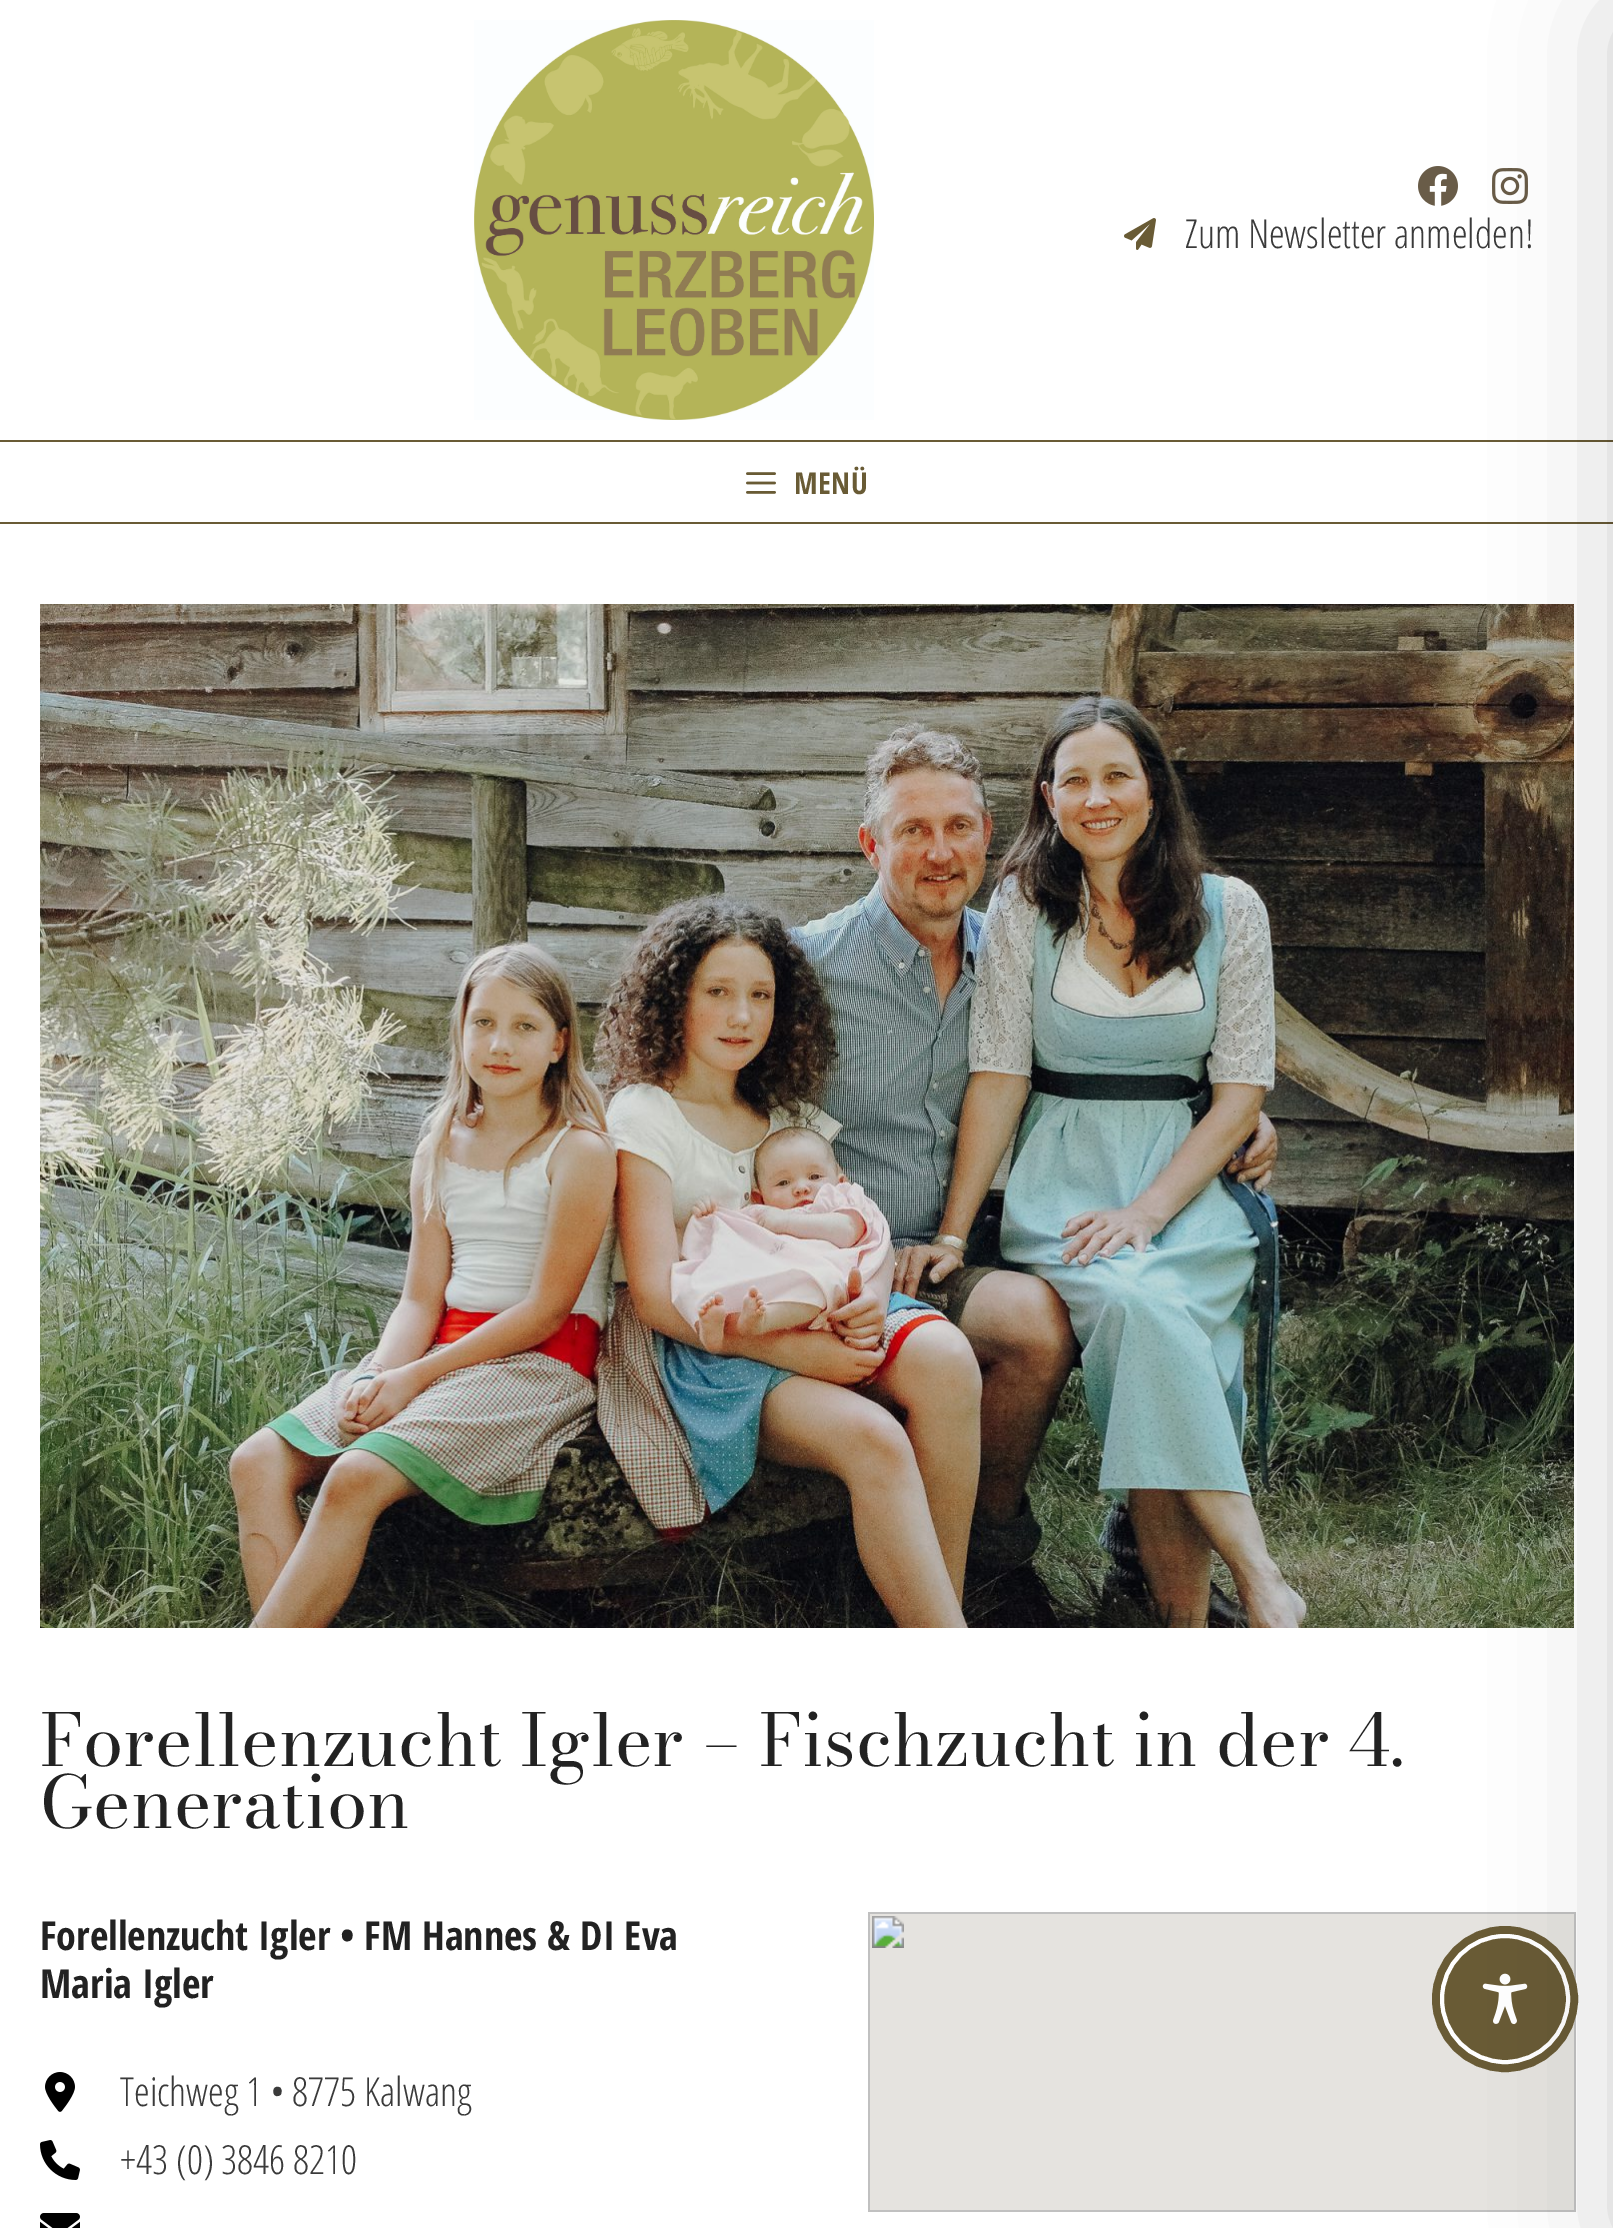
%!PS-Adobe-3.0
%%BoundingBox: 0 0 1613 2228
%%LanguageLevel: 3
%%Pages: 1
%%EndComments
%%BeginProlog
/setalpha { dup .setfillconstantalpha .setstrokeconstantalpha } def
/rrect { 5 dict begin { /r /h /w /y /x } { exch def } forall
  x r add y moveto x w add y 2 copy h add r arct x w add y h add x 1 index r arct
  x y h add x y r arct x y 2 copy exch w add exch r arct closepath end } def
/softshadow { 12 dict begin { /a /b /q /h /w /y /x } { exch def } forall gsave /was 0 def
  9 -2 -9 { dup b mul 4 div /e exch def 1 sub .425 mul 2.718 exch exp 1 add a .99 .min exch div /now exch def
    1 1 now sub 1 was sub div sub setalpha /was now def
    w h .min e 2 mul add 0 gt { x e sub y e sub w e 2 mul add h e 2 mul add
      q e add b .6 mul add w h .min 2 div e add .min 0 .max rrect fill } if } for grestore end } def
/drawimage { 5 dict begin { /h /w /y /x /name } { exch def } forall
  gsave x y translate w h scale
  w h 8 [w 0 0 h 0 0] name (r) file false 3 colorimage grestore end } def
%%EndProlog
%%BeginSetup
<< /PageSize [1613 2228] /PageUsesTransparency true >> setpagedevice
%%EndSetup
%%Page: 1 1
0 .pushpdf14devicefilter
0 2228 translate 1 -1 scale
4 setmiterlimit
1 setgray
0 0 1613 2228 rectfill
(images/2.raw) 1418 166 40 40 drawimage
(images/3.raw) 1492 168 36 36 drawimage
0.412 0.357 0.208 setrgbcolor
0 440 1613 2 rectfill
0 522 1613 2 rectfill
(images/6.raw) 40 604 1534 1024 drawimage
(images/10.raw) 868 1912 708 300 drawimage
8 setlinewidth
newpath 1505 1999 69 0 360 arc closepath stroke
newpath 1505 1999 63 0 360 arc closepath gsave fill grestore
1 setgray
4 setlinewidth
stroke
(images/11.raw) 1482 1973 46 52 drawimage
0 setgray
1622 20 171 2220 0 60 0.2 softshadow
(images/1.raw) 474 20 400 400 drawimage
(images/4.raw) 1124 218 32 32 drawimage
(images/5.raw) 746 472 30 22 drawimage
(images/7.raw) 45 2072 30 40 drawimage
(images/8.raw) 40 2140 40 40 drawimage
(images/9.raw) 40 2213 40 15 drawimage
/OpenSansCondensed-Light [40 0 0 -40 0 0] selectfont
0.227 setgray
1185 248 moveto (Zum Newsletter anmelden!) show
/OpenSansCondensed-Bold [30 0 0 -30 0 0] selectfont
0.412 0.357 0.208 setrgbcolor
794 494 moveto 0.5 0 (MENÜ) ashow
/BodoniModa-Regular [72 0 0 -72 0 0] selectfont
0.133 setgray
40 1766 moveto (Forellenzucht Igler – Fischzucht in der 4.) show
40 1828 moveto (Generation) show
/OpenSansCondensed-Bold [40 0 0 -40 0 0] selectfont
40 1950 moveto (Forellenzucht Igler • FM Hannes & DI Eva) show
40 1998 moveto (Maria Igler) show
/OpenSansCondensed-Light [40 0 0 -40 0 0] selectfont
0.227 setgray
120 2106 moveto (Teichweg 1 • 8775 Kalwang) show
120 2174 moveto (+43 \(0\) 3846 8210) show
.poppdf14devicefilter showpage
%%EOF
